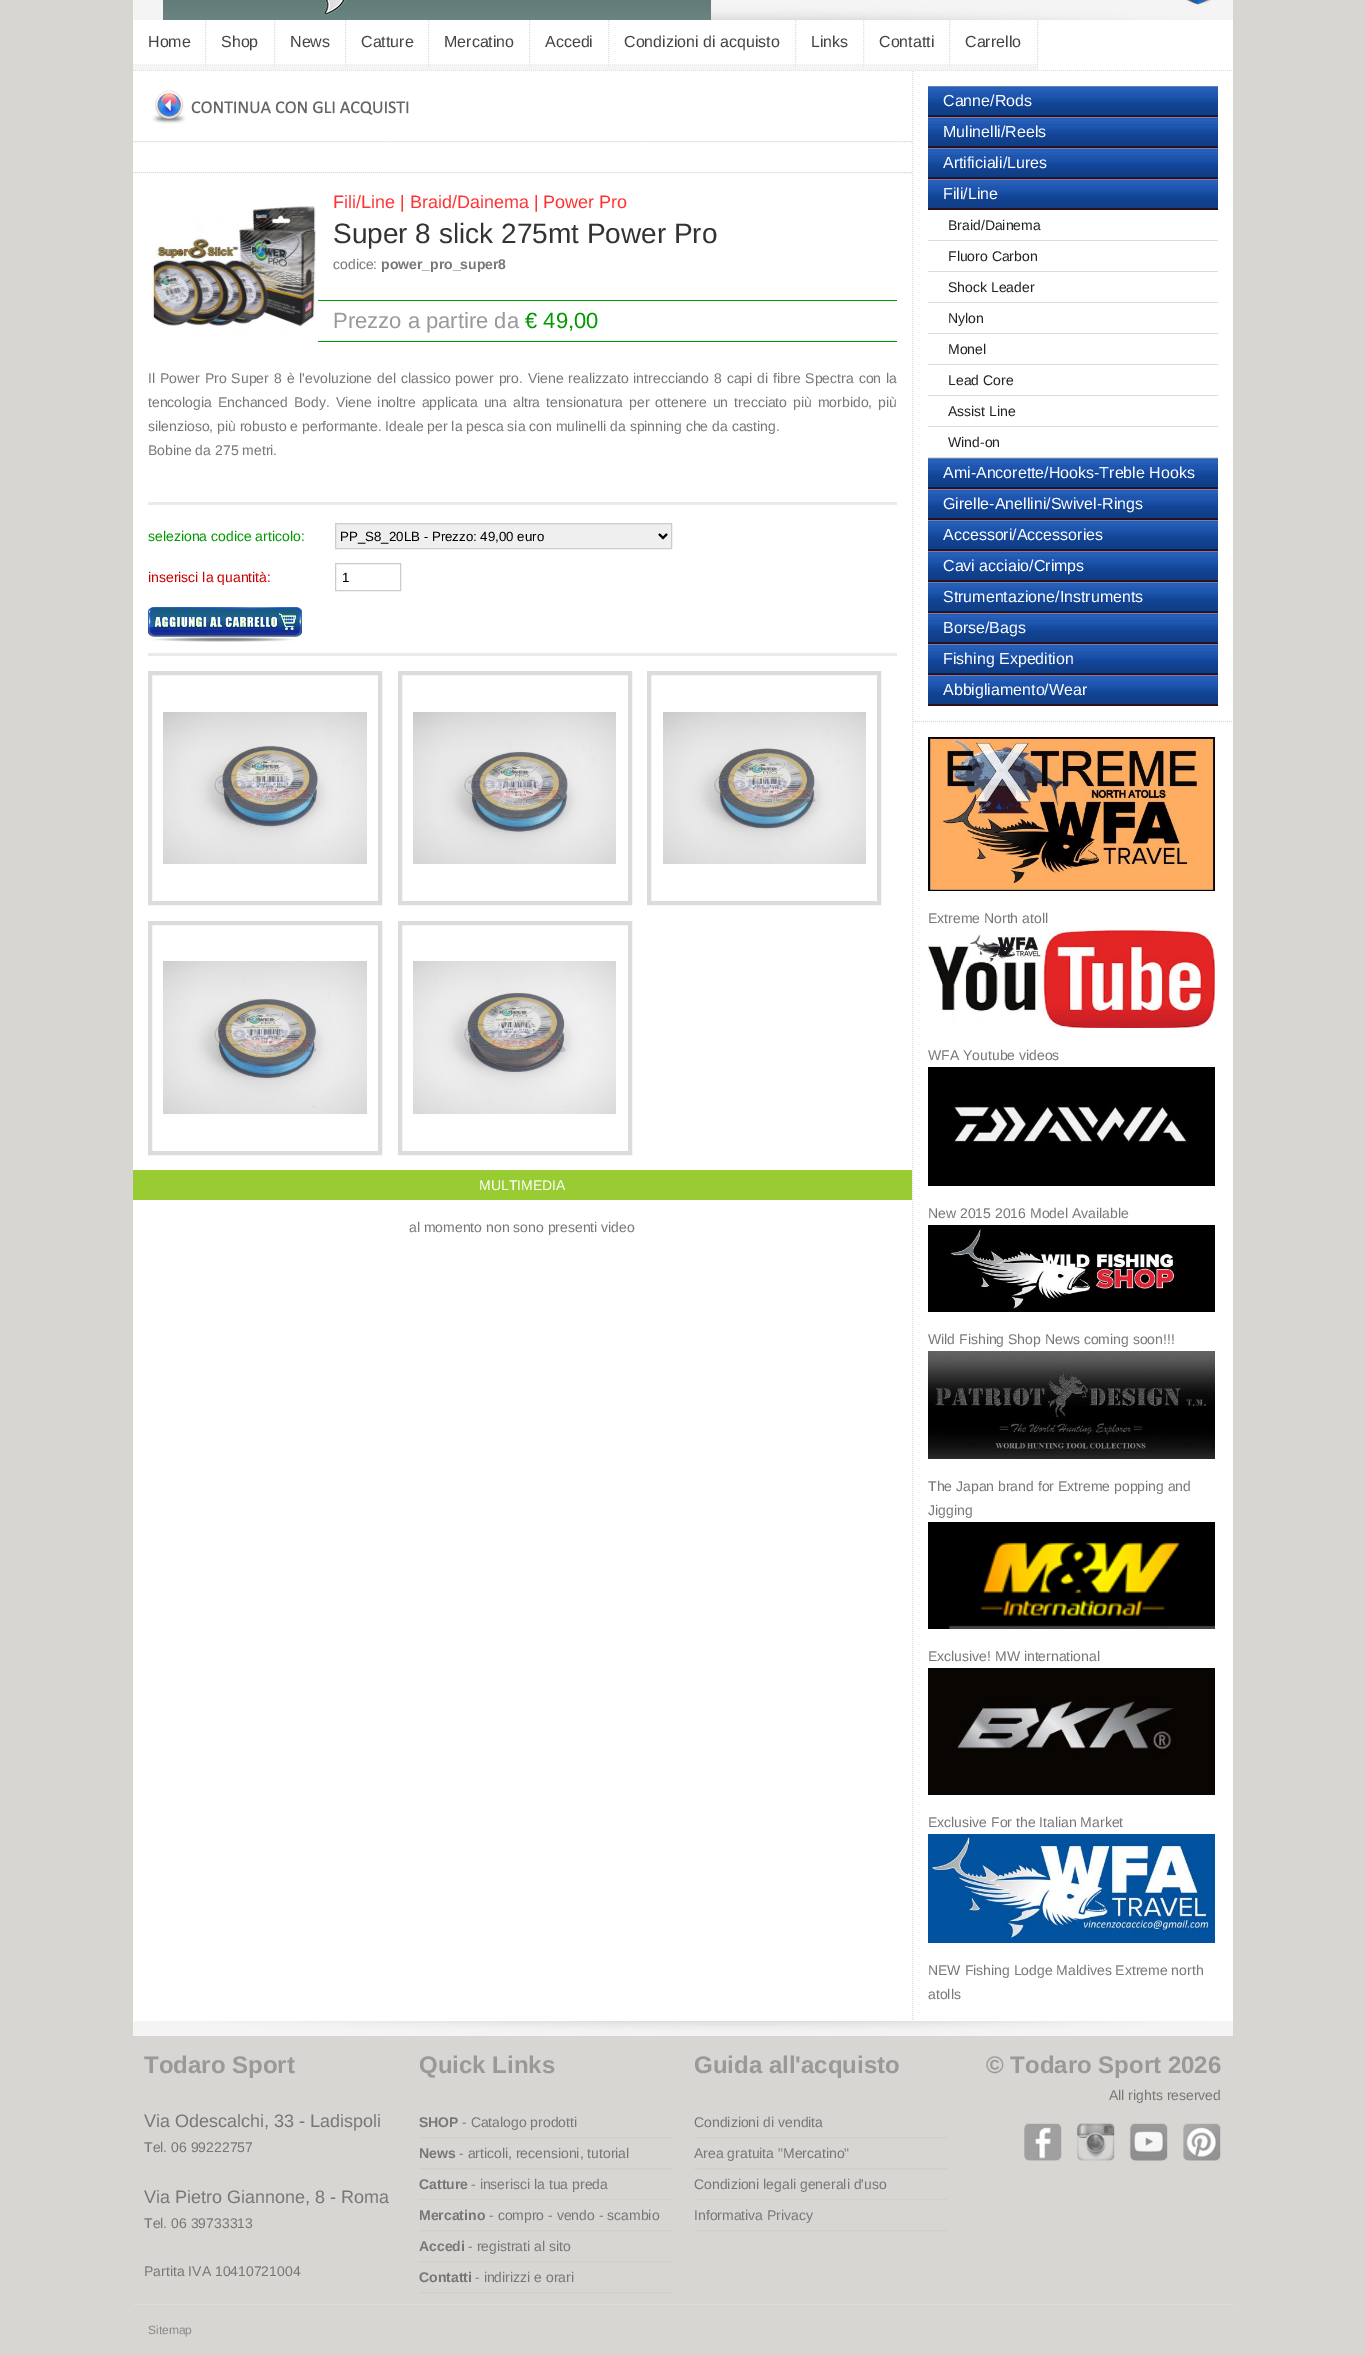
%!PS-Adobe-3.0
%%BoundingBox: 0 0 1365 2355
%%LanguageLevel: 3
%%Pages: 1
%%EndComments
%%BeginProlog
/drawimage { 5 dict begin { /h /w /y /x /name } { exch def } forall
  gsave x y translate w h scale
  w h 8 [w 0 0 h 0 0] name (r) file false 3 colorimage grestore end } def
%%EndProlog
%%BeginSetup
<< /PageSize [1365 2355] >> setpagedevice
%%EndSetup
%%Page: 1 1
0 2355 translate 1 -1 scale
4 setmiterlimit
0.843 0.839 0.824 setrgbcolor
0 0 1365 2355 rectfill
(images/1.raw) 133 0 1100 20 drawimage
(images/2.raw) 163 0 548 20 drawimage
(images/3.raw) 1186 0 26 5 drawimage
1 setgray
133 20 1100 51 rectfill
0.863 setgray
[1 1] 0 setdash
newpath 133 70.5 moveto 1233 70.5 lineto stroke
newpath 205.5 20 moveto 205.5 70 lineto stroke
0.957 setgray
newpath 206 70 moveto 133 70 lineto 133 64 lineto 205 64 lineto closepath fill
0.863 setgray
newpath 274.5 20 moveto 274.5 70 lineto stroke
0.957 setgray
newpath 275 70 moveto 206 70 lineto 206 64 lineto 274 64 lineto closepath fill
0.863 setgray
newpath 345.5 20 moveto 345.5 70 lineto stroke
0.957 setgray
newpath 346 70 moveto 275 70 lineto 275 64 lineto 345 64 lineto closepath fill
0.863 setgray
newpath 428.5 20 moveto 428.5 70 lineto stroke
0.957 setgray
newpath 429 70 moveto 346 70 lineto 346 64 lineto 428 64 lineto closepath fill
0.863 setgray
newpath 529.5 20 moveto 529.5 70 lineto stroke
0.957 setgray
newpath 530 70 moveto 429 70 lineto 429 64 lineto 529 64 lineto closepath fill
0.863 setgray
newpath 608.5 20 moveto 608.5 70 lineto stroke
0.957 setgray
newpath 609 70 moveto 530 70 lineto 530 64 lineto 608 64 lineto closepath fill
0.863 setgray
newpath 795.5 20 moveto 795.5 70 lineto stroke
0.957 setgray
newpath 796 70 moveto 609 70 lineto 609 64 lineto 795 64 lineto closepath fill
0.863 setgray
newpath 863.5 20 moveto 863.5 70 lineto stroke
0.957 setgray
newpath 864 70 moveto 796 70 lineto 796 64 lineto 863 64 lineto closepath fill
0.863 setgray
newpath 949.5 20 moveto 949.5 70 lineto stroke
0.957 setgray
newpath 950 70 moveto 864 70 lineto 864 64 lineto 949 64 lineto closepath fill
0.863 setgray
newpath 1037.5 20 moveto 1037.5 70 lineto stroke
0.957 setgray
newpath 1038 70 moveto 950 70 lineto 950 64 lineto 1037 64 lineto closepath fill
1 setgray
133 71 1100 1950 rectfill
0.863 setgray
newpath 133 141.5 moveto 912 141.5 lineto stroke
(images/4.raw) 152 90 257 34 drawimage
newpath 133 172.5 moveto 912 172.5 lineto stroke
(images/5.raw) 148 206 170 136 drawimage
0 0.6 0 setrgbcolor
318 300 579 1 rectfill
318 341 579 1 rectfill
0.918 setgray
148 502 749 3 rectfill
148 653 749 3 rectfill
0.937 setgray
newpath 335.5 523.5 moveto 671.5 523.5 lineto 671.5 548.5 lineto 335.5 548.5 lineto closepath gsave fill grestore
0.8 setgray
[] 0 setdash
stroke
0 setgray
2 setlinewidth
newpath 659 534 moveto 663 538 lineto 667 534 lineto stroke
0.8 setgray
1 setlinewidth
335.5 563.5 65 27 rectstroke
(images/6.raw) 148 607 154 35 drawimage
0.863 setgray
4 setlinewidth
150 673 230 230 rectstroke
(images/7.raw) 163 712 204 152 drawimage
400 673 230 230 rectstroke
(images/8.raw) 413 712 203 152 drawimage
649 673 230 230 rectstroke
(images/9.raw) 663 712 203 152 drawimage
150 923 230 230 rectstroke
(images/10.raw) 163 961 204 153 drawimage
400 923 230 230 rectstroke
(images/11.raw) 413 961 203 153 drawimage
0.6 0.8 0.2 setrgbcolor
133 1170 779 30 rectfill
0.863 setgray
1 setlinewidth
[1 1] 0 setdash
newpath 912.5 71 moveto 912.5 2021 lineto stroke
newpath 913 721.5 moveto 1233 721.5 lineto stroke
(images/12.raw) 928 86 290 30 drawimage
0.333 0 0 setrgbcolor
928 116 290 1 rectfill
(images/12.raw) 928 117 290 30 drawimage
928 147 290 1 rectfill
(images/12.raw) 928 148 290 30 drawimage
928 178 290 1 rectfill
(images/12.raw) 928 179 290 30 drawimage
928 209 290 1 rectfill
0.863 setgray
928 240 290 1 rectfill
928 271 290 1 rectfill
928 302 290 1 rectfill
928 333 290 1 rectfill
928 364 290 1 rectfill
928 395 290 1 rectfill
928 426 290 1 rectfill
928 457 290 1 rectfill
(images/12.raw) 928 458 290 30 drawimage
0.333 0 0 setrgbcolor
928 488 290 1 rectfill
(images/12.raw) 928 489 290 30 drawimage
928 519 290 1 rectfill
(images/12.raw) 928 520 290 30 drawimage
928 550 290 1 rectfill
(images/12.raw) 928 551 290 30 drawimage
928 581 290 1 rectfill
(images/12.raw) 928 582 290 30 drawimage
928 612 290 1 rectfill
(images/12.raw) 928 613 290 30 drawimage
928 643 290 1 rectfill
(images/12.raw) 928 644 290 30 drawimage
928 674 290 1 rectfill
(images/12.raw) 928 675 290 30 drawimage
928 705 290 1 rectfill
(images/13.raw) 928 737 287 154 drawimage
(images/14.raw) 928 930 287 98 drawimage
(images/15.raw) 928 1067 287 119 drawimage
(images/16.raw) 928 1225 287 87 drawimage
(images/17.raw) 928 1351 287 108 drawimage
(images/18.raw) 928 1522 287 107 drawimage
(images/19.raw) 928 1668 287 127 drawimage
(images/20.raw) 928 1834 287 109 drawimage
(images/21.raw) 133 2021 1100 15 drawimage
0.8 setgray
newpath 419 2137.5 moveto 672 2137.5 lineto stroke
newpath 419 2168.5 moveto 672 2168.5 lineto stroke
newpath 419 2199.5 moveto 672 2199.5 lineto stroke
newpath 419 2230.5 moveto 672 2230.5 lineto stroke
newpath 419 2261.5 moveto 672 2261.5 lineto stroke
newpath 419 2292.5 moveto 672 2292.5 lineto stroke
newpath 694 2137.5 moveto 947 2137.5 lineto stroke
newpath 694 2168.5 moveto 947 2168.5 lineto stroke
newpath 694 2199.5 moveto 947 2199.5 lineto stroke
newpath 694 2230.5 moveto 947 2230.5 lineto stroke
(images/22.raw) 1024 2123 38 38 drawimage
(images/23.raw) 1076 2123 39 38 drawimage
(images/24.raw) 1129 2123 39 39 drawimage
(images/25.raw) 1183 2123 38 38 drawimage
0.863 setgray
133 2304 1100 1 rectfill
/LiberationSans-Regular [16 0 0 -16 0 0] selectfont
0.267 setgray
148 47 moveto (Home) show
221 47 moveto (Shop) show
290 47 moveto (News) show
361 47 moveto (Catture) show
444 47 moveto (Mercatino) show
545 47 moveto (Accedi) show
624 47 moveto (Condizioni di acquisto) show
811 47 moveto (Links) show
879 47 moveto (Contatti) show
965 47 moveto (Carrello) show
/LiberationSans-Regular [18 0 0 -18 0 0] selectfont
1 0.2 0.2 setrgbcolor
333 208 moveto (Fili/Line | Braid/Dainema | Power Pro) show
/LiberationSans-Regular [28 0 0 -28 0 0] selectfont
0.2 setgray
333 243 moveto (Super 8 slick 275mt Power Pro) show
/LiberationSans-Regular [14 0 0 -14 0 0] selectfont
0.467 setgray
333 269 moveto (codice:) show
/LiberationSans-Bold [14 0 0 -14 0 0] selectfont
381 269 moveto (power_pro_super8) show
/LiberationSans-Regular [22 0 0 -22 0 0] selectfont
0.6 setgray
333 328 moveto (Prezzo a partire da) show
0 0.6 0 setrgbcolor
525 328 moveto (€ 49,00) show
/LiberationSans-Regular [14 0 0 -14 0 0] selectfont
0.467 setgray
148 383 moveto 1.1 0 32 (Il Power Pro Super 8 è l'evoluzione del classico power pro. Viene realizzato intrecciando 8 capi di fibre Spectra con la) widthshow
148 407 moveto 2.1 0 32 (tencologia Enchanced Body. Viene inoltre applicata una altra tensionatura per ottenere un trecciato più morbido, più) widthshow
148 431 moveto (silenzioso, più robusto e performante. Ideale per la pesca sia con mulinelli da spinning che da casting.) show
148 455 moveto (Bobine da 275 metri.) show
0 0.6 0 setrgbcolor
148 541 moveto (seleziona codice articolo:) show
/LiberationSans-Regular [13.3 0 0 -13.3 0 0] selectfont
0 setgray
340 541 moveto (PP_S8_20LB - Prezzo: 49,00 euro) show
/LiberationSans-Regular [14 0 0 -14 0 0] selectfont
0.8 0 0 setrgbcolor
148 582 moveto (inserisci la quantità:) show
/LiberationSans-Regular [13.3 0 0 -13.3 0 0] selectfont
0 setgray
342 582 moveto (1) show
/LiberationSans-Regular [14 0 0 -14 0 0] selectfont
1 setgray
479 1190 moveto (MULTIMEDIA) show
0.467 setgray
409 1232 moveto (al momento non sono presenti video) show
/LiberationSans-Regular [16 0 0 -16 0 0] selectfont
1 setgray
943 106 moveto (Canne/Rods) show
943 137 moveto (Mulinelli/Reels) show
943 168 moveto (Artificiali/Lures) show
943 199 moveto (Fili/Line) show
/LiberationSans-Regular [14 0 0 -14 0 0] selectfont
0.133 setgray
948 230 moveto (Braid/Dainema) show
948 261 moveto (Fluoro Carbon) show
948 292 moveto (Shock Leader) show
948 323 moveto (Nylon) show
948 354 moveto (Monel) show
948 385 moveto (Lead Core) show
948 416 moveto (Assist Line) show
948 447 moveto (Wind-on) show
/LiberationSans-Regular [16 0 0 -16 0 0] selectfont
1 setgray
943 478 moveto (Ami-Ancorette/Hooks-Treble Hooks) show
943 509 moveto (Girelle-Anellini/Swivel-Rings) show
943 540 moveto (Accessori/Accessories) show
943 571 moveto (Cavi acciaio/Crimps) show
943 602 moveto (Strumentazione/Instruments) show
943 633 moveto (Borse/Bags) show
943 664 moveto (Fishing Expedition) show
943 695 moveto (Abbigliamento/Wear) show
/LiberationSans-Regular [14 0 0 -14 0 0] selectfont
0.467 setgray
928 923 moveto (Extreme North atoll) show
928 1060 moveto (WFA Youtube videos) show
928 1218 moveto (New 2015 2016 Model Available) show
928 1344 moveto (Wild Fishing Shop News coming soon!!!) show
928 1491 moveto (The Japan brand for Extreme popping and) show
928 1515 moveto (Jigging) show
928 1661 moveto (Exclusive! MW international) show
928 1827 moveto (Exclusive For the Italian Market) show
928 1975 moveto (NEW Fishing Lodge Maldives Extreme north) show
928 1999 moveto (atolls) show
/LiberationSans-Bold [24 0 0 -24 0 0] selectfont
0.6 setgray
144 2073 moveto (Todaro Sport) show
/LiberationSans-Regular [18 0 0 -18 0 0] selectfont
0.467 setgray
144 2127 moveto (Via Odescalchi, 33 - Ladispoli) show
/LiberationSans-Regular [14 0 0 -14 0 0] selectfont
144 2152 moveto (Tel. 06 99222757) show
/LiberationSans-Regular [18 0 0 -18 0 0] selectfont
144 2203 moveto (Via Pietro Giannone, 8 - Roma) show
/LiberationSans-Regular [14 0 0 -14 0 0] selectfont
144 2228 moveto (Tel. 06 39733313) show
144 2276 moveto (Partita IVA 10410721004) show
/LiberationSans-Bold [24 0 0 -24 0 0] selectfont
0.6 setgray
419 2073 moveto (Quick Links) show
/LiberationSans-Bold [14 0 0 -14 0 0] selectfont
0.467 setgray
419 2127 moveto (SHOP) show
/LiberationSans-Regular [14 0 0 -14 0 0] selectfont
462 2127 moveto (- Catalogo prodotti) show
/LiberationSans-Bold [14 0 0 -14 0 0] selectfont
419 2158 moveto (News) show
/LiberationSans-Regular [14 0 0 -14 0 0] selectfont
459 2158 moveto (- articoli, recensioni, tutorial) show
/LiberationSans-Bold [14 0 0 -14 0 0] selectfont
419 2189 moveto (Catture) show
/LiberationSans-Regular [14 0 0 -14 0 0] selectfont
471 2189 moveto (- inserisci la tua preda) show
/LiberationSans-Bold [14 0 0 -14 0 0] selectfont
419 2220 moveto (Mercatino) show
/LiberationSans-Regular [14 0 0 -14 0 0] selectfont
489 2220 moveto (- compro - vendo - scambio) show
/LiberationSans-Bold [14 0 0 -14 0 0] selectfont
419 2251 moveto (Accedi) show
/LiberationSans-Regular [14 0 0 -14 0 0] selectfont
468 2251 moveto (- registrati al sito) show
/LiberationSans-Bold [14 0 0 -14 0 0] selectfont
419 2282 moveto (Contatti) show
/LiberationSans-Regular [14 0 0 -14 0 0] selectfont
475 2282 moveto (- indirizzi e orari) show
/LiberationSans-Bold [24 0 0 -24 0 0] selectfont
0.6 setgray
694 2073 moveto (Guida all'acquisto) show
/LiberationSans-Regular [14 0 0 -14 0 0] selectfont
0.467 setgray
694 2127 moveto (Condizioni di vendita) show
694 2158 moveto (Area gratuita "Mercatino") show
694 2189 moveto (Condizioni legali generali d'uso) show
694 2220 moveto (Informativa Privacy) show
/LiberationSans-Bold [24 0 0 -24 0 0] selectfont
0.6 setgray
986 2073 moveto (© Todaro Sport 2026) show
/LiberationSans-Regular [14 0 0 -14 0 0] selectfont
0.467 setgray
1109 2100 moveto (All rights reserved) show
/LiberationSans-Regular [12 0 0 -12 0 0] selectfont
0.533 setgray
148 2334 moveto (Sitemap) show
showpage
%%EOF
